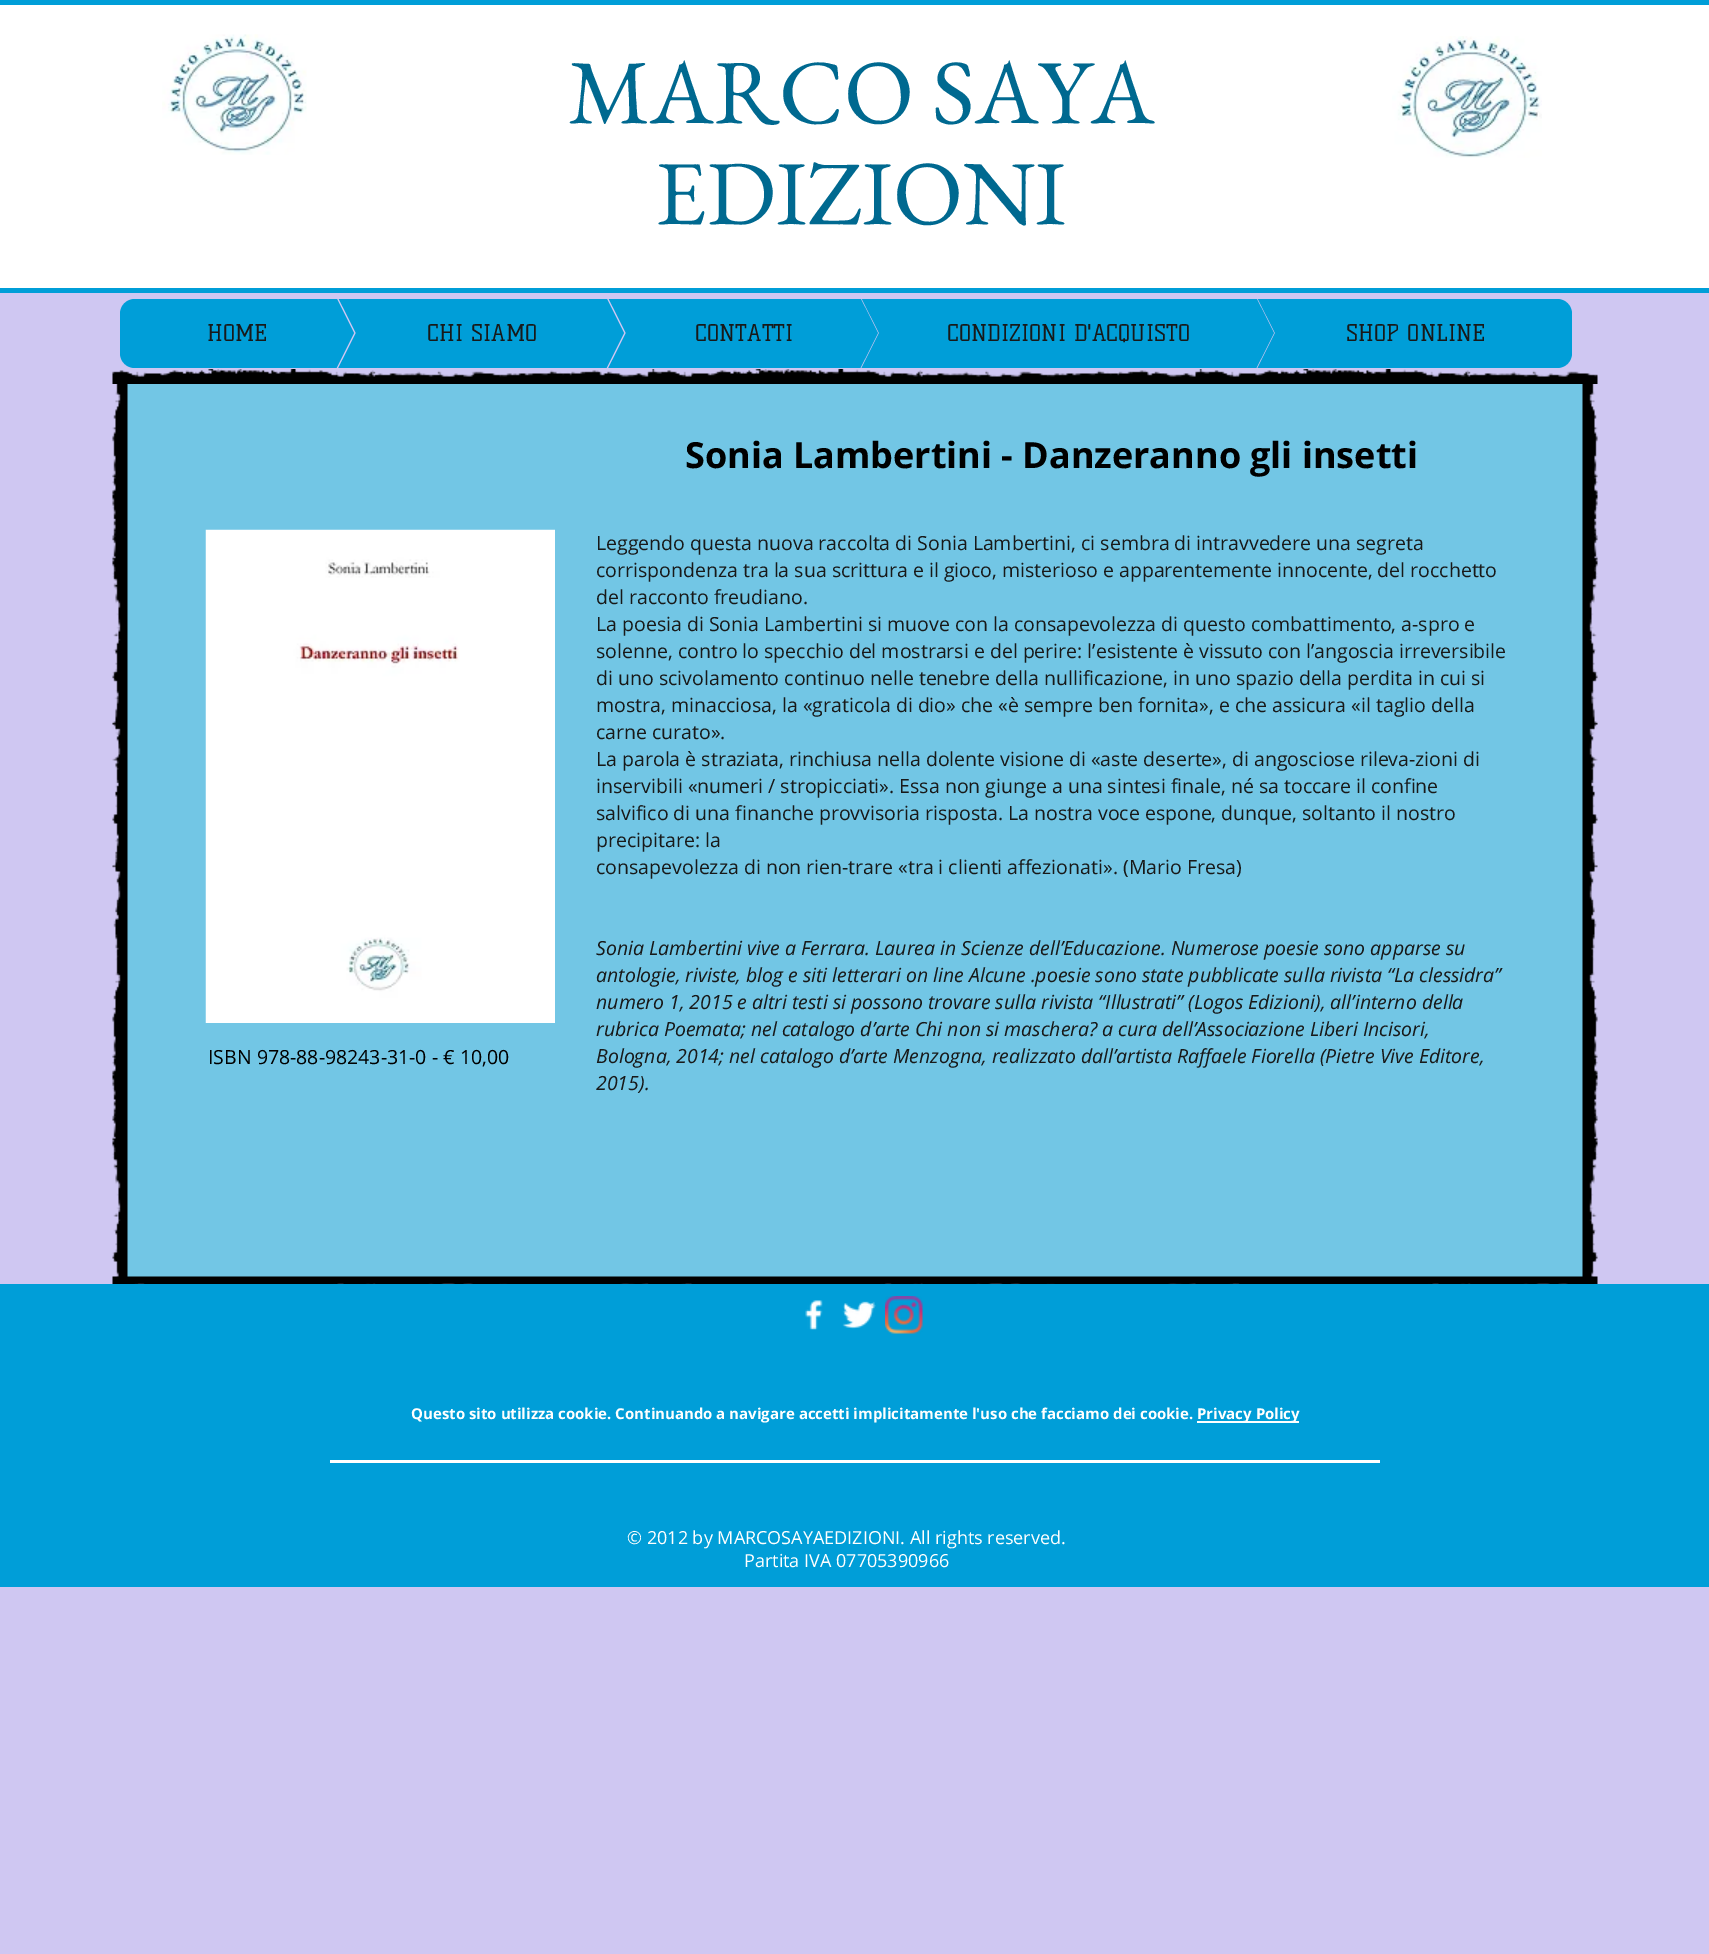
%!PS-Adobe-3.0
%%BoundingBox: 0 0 1709 1954
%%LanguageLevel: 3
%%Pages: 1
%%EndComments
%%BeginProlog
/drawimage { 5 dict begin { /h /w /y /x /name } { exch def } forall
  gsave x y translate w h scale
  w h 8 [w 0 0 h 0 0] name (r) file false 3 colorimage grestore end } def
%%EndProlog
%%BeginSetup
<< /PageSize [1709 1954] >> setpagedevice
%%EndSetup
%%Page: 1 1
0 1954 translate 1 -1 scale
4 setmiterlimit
0.812 0.78 0.949 setrgbcolor
0 0 1709 1954 rectfill
1 setgray
0 5 1709 283 rectfill
0 0.62 0.847 setrgbcolor
0 0 1709 5 rectfill
0 288 1709 5 rectfill
(images/1.raw) 162 34 145 121 drawimage
(images/2.raw) 1392 36 150 122 drawimage
newpath 135 299 moveto 249 299 lineto 249 368 lineto 135 368 lineto 126.5 368 120 361.5 120 353 curveto 120 314 lineto 120 305.5 126.5 299 135 299 curveto closepath fill
gsave
249 299 105 69 rectclip
newpath 354 333 moveto 249 333 lineto 249 123 lineto closepath fill
newpath 249 333 moveto 354 333 lineto 249 543 lineto closepath fill
grestore
gsave
251 299 105 69 rectclip
newpath 250 123 moveto 356 123 lineto 356 333 lineto closepath fill
newpath 356 543 moveto 250 543 lineto 356 333 lineto closepath fill
grestore
356 299 163 69 rectfill
gsave
519 299 105 69 rectclip
newpath 624 333 moveto 519 333 lineto 519 123 lineto closepath fill
newpath 519 333 moveto 624 333 lineto 519 543 lineto closepath fill
grestore
gsave
521 299 105 69 rectclip
newpath 520 123 moveto 626 123 lineto 626 333 lineto closepath fill
newpath 626 543 moveto 520 543 lineto 626 333 lineto closepath fill
grestore
626 299 147 69 rectfill
gsave
773 299 105 69 rectclip
newpath 878 333 moveto 772 333 lineto 772 123 lineto closepath fill
newpath 772 333 moveto 878 333 lineto 772 543 lineto closepath fill
grestore
gsave
774 299 105 69 rectclip
newpath 774 123 moveto 879 123 lineto 879 333 lineto closepath fill
newpath 879 543 moveto 774 543 lineto 879 333 lineto closepath fill
grestore
879 299 290 69 rectfill
gsave
1169 299 105 69 rectclip
newpath 1274 333 moveto 1168 333 lineto 1168 123 lineto closepath fill
newpath 1168 333 moveto 1274 333 lineto 1168 543 lineto closepath fill
grestore
gsave
1170 299 105 69 rectclip
newpath 1170 123 moveto 1275 123 lineto 1275 333 lineto closepath fill
newpath 1275 543 moveto 1170 543 lineto 1275 333 lineto closepath fill
grestore
1275 299 192 69 rectfill
newpath 1467 299 moveto 1557 299 lineto 1565.5 299 1572 305.5 1572 314 curveto 1572 353 lineto 1572 361.5 1565.5 368 1557 368 curveto 1467 368 lineto closepath fill
0.447 0.776 0.898 setrgbcolor
127 384 1456 893 rectfill
(images/3.raw) 112 369 1486 15 drawimage
(images/4.raw) 112 1276 1486 8 drawimage
(images/5.raw) 112 384 16 893 drawimage
(images/6.raw) 1582 384 16 893 drawimage
(images/7.raw) 205 529 350 494 drawimage
0 0.62 0.847 setrgbcolor
0 1284 1709 303 rectfill
(images/8.raw) 805 1300 18 30 drawimage
(images/9.raw) 842 1301 34 28 drawimage
(images/10.raw) 885 1296 38 38 drawimage
1 setgray
1197 1421 102 2 rectfill
330 1460 1050 3 rectfill
/EBGaramond-Regular [91.5 0 0 -91.5 0 0] selectfont
0 0.412 0.565 setrgbcolor
568 123 moveto (MARCO SAYA) show
655 224 moveto (EDIZIONI) show
/KellySlab-Regular [22.5 0 0 -22.5 0 0] selectfont
0.094 0.098 0.098 setrgbcolor
207 341 moveto (HOME) show
427 341 moveto (CHI SIAMO) show
695 341 moveto (CONTATTI) show
947 341 moveto (CONDIZIONI D'ACQUISTO) show
1346 341 moveto (SHOP ONLINE) show
/OpenSans-Bold [36 0 0 -36 0 0] selectfont
0 setgray
685 468 moveto (Sonia Lambertini - Danzeranno gli insetti) show
/OpenSans-Regular [19.5 0 0 -19.5 0 0] selectfont
0.094 0.098 0.098 setrgbcolor
596 550 moveto (Leggendo questa nuova raccolta di Sonia Lambertini, ci sembra di intravvedere una segreta) show
596 577 moveto (corrispondenza tra la sua scrittura e il gioco, misterioso e apparentemente innocente, del rocchetto) show
596 604 moveto (del racconto freudiano.) show
596 631 moveto (La poesia di Sonia Lambertini si muove con la consapevolezza di questo combattimento, a-spro e) show
596 658 moveto (solenne, contro lo specchio del mostrarsi e del perire: l’esistente è vissuto con l’angoscia irreversibile) show
596 685 moveto (di uno scivolamento continuo nelle tenebre della nullificazione, in uno spazio della perdita in cui si) show
596 712 moveto (mostra, minacciosa, la «graticola di dio» che «è sempre ben fornita», e che assicura «il taglio della) show
596 739 moveto (carne curato».) show
596 766 moveto (La parola è straziata, rinchiusa nella dolente visione di «aste deserte», di angosciose rileva-zioni di) show
596 793 moveto (inservibili «numeri / stropicciati». Essa non giunge a una sintesi finale, né sa toccare il confine) show
596 820 moveto (salvifico di una finanche provvisoria risposta. La nostra voce espone, dunque, soltanto il nostro) show
596 847 moveto (precipitare: la) show
596 874 moveto (consapevolezza di non rien-trare «tra i clienti affezionati». \(Mario Fresa\)) show
/OpenSans-Italic [19.5 0 0 -19.5 0 0] selectfont
596 955 moveto (Sonia Lambertini vive a Ferrara. Laurea in Scienze dell’Educazione. Numerose poesie sono apparse su) show
596 982 moveto (antologie, riviste, blog e siti letterari on line Alcune .poesie sono state pubblicate sulla rivista “La clessidra”) show
596 1009 moveto (numero 1, 2015 e altri testi si possono trovare sulla rivista “Illustrati” \(Logos Edizioni\), all’interno della) show
596 1036 moveto (rubrica Poemata; nel catalogo d’arte Chi non si maschera? a cura dell’Associazione Liberi Incisori,) show
596 1063 moveto (Bologna, 2014; nel catalogo d’arte Menzogna, realizzato dall’artista Raffaele Fiorella \(Pietre Vive Editore,) show
596 1090 moveto (2015\).) show
/OpenSans-Regular [19.5 0 0 -19.5 0 0] selectfont
0 setgray
208 1064 moveto (ISBN 978-88-98243-31-0 - € 10,00) show
/OpenSans-Bold [15 0 0 -15 0 0] selectfont
1 setgray
411 1419 moveto (Questo sito utilizza cookie. Continuando a navigare accetti implicitamente l'uso che facciamo dei cookie.) show
1197 1419 moveto (Privacy Policy) show
/OpenSans-Regular [18 0 0 -18 0 0] selectfont
627 1544 moveto (© 2012 by MARCOSAYAEDIZIONI. All rights reserved.) show
744 1567 moveto (Partita IVA 07705390966) show
showpage
%%EOF
